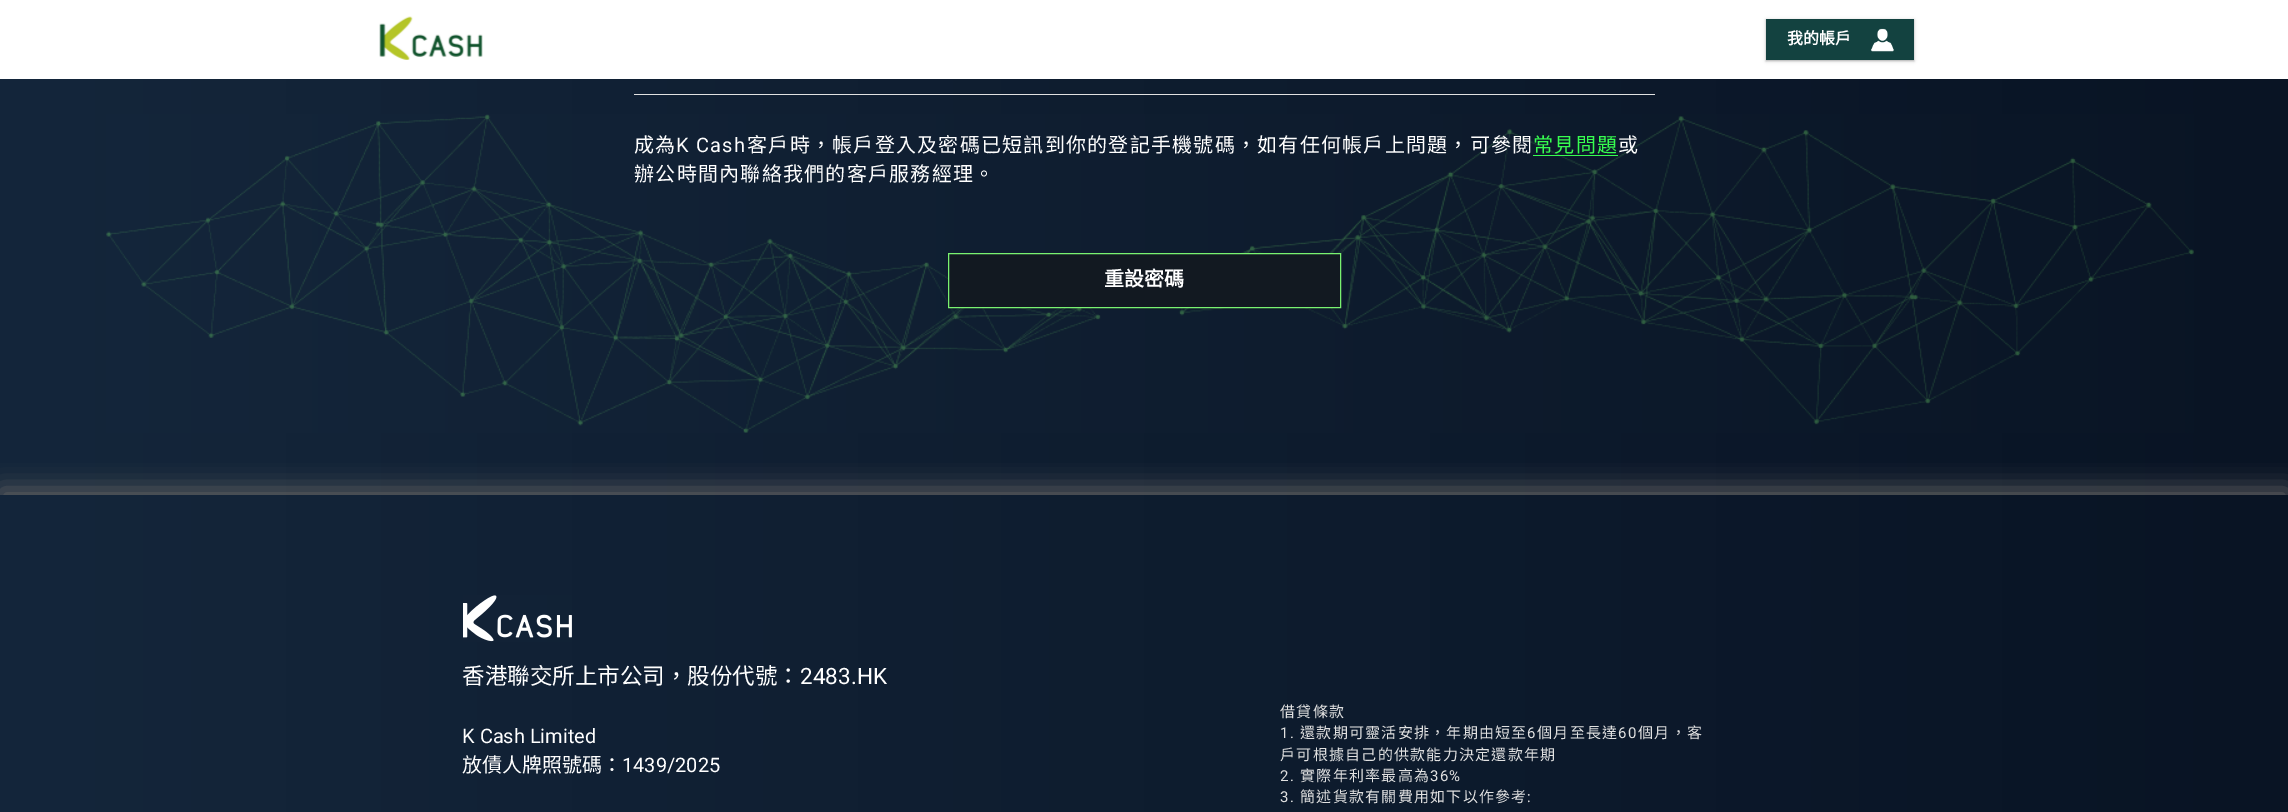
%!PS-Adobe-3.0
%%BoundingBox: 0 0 2288 812
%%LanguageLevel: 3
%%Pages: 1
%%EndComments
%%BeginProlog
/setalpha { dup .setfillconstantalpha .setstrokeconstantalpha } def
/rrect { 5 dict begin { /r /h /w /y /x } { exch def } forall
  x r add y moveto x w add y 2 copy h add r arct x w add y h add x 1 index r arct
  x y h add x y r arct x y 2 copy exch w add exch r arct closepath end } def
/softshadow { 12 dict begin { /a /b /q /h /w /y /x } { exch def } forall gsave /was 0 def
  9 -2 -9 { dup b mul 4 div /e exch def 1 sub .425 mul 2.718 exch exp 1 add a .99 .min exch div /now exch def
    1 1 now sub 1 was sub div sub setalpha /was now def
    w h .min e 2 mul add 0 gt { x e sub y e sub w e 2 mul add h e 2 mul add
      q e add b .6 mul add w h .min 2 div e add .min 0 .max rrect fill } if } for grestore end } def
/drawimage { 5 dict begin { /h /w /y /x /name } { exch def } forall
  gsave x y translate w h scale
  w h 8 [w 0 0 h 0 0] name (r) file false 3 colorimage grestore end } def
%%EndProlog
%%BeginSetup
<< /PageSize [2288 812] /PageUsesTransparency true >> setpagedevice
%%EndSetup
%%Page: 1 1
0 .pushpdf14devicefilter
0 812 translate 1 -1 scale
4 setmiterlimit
1 setgray
0 0 2288 812 rectfill
gsave newpath 0 79 moveto 2288 79 lineto 2288 812 lineto 0 812 lineto closepath clip newpath
<< /ShadingType 2 /ColorSpace /DeviceRGB /Coords [0 494 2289 494] /Extend [true true] /Function << /FunctionType 2 /Domain [0 1] /C0 [0.078 0.149 0.231] /C1 [0.035 0.078 0.141] /N 1 >> >> shfill grestore
(images/1.raw) 379 16 104 44 drawimage
0 setgray
1766 20 148 41 0 1 0.24 softshadow
1766 20 148 41 0 2 0.12 softshadow
0.075 0.259 0.251 setrgbcolor
1766 19 148 41 rectfill
(images/2.raw) 1871 28 23 24 drawimage
(images/3.raw) 106 114 2088 319 drawimage
0.882 setgray
634 94 1021 1 rectfill
0.216 0.992 0.31 setrgbcolor
1533 155 85 1 rectfill
0 setgray
948 254 393 55 0 1 0.24 softshadow
0.071 0.098 0.129 setrgbcolor
newpath 948.5 253.5 moveto 1340.5 253.5 lineto 1340.5 307.5 lineto 948.5 307.5 lineto closepath gsave fill grestore
0.475 0.949 0.439 setrgbcolor
stroke
gsave
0 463 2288 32 rectclip
0.376 setgray
0 489 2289 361 0 12.5 1 softshadow
grestore
(images/4.raw) 463 595 109 47 drawimage
/NotoSansCJKHK-Bold [16 0 0 -16 0 0] selectfont
1 setgray
1787 44 moveto (我的帳戶) show
/NotoSansCJKHK-Regular [20 0 0 -20 0 0] selectfont
634 152 moveto 1.25 0 (成為) ashow
/Roboto-Regular [20 0 0 -20 0 0] selectfont
676 152 moveto 1.25 0 (K Cash) ashow
/NotoSansCJKHK-Regular [20 0 0 -20 0 0] selectfont
747 152 moveto 1.25 0 (客戶時，帳戶登入及密碼已短訊到你的登記手機號碼，如有任何帳戶上問題，可參閱) ashow
0.216 0.992 0.31 setrgbcolor
1533 152 moveto 1.25 0 (常見問題) ashow
1 setgray
1618 152 moveto 1.25 0 (或) ashow
634 181 moveto 1.25 0 (辦公時間內聯絡我們的客戶服務經理。) ashow
/NotoSansCJKHK-Bold [20 0 0 -20 0 0] selectfont
1104 286 moveto (重設密碼) show
/NotoSansCJKHK-Regular [22.5 0 0 -22.5 0 0] selectfont
462 684 moveto (香港聯交所上市公司，股份代號：) show
/Roboto-Regular [22.5 0 0 -22.5 0 0] selectfont
800 684 moveto (2483.HK) show
/Roboto-Regular [20 0 0 -20 0 0] selectfont
462 743 moveto (K Cash Limited) show
/NotoSansCJKHK-Regular [20 0 0 -20 0 0] selectfont
462 772 moveto (放債人牌照號碼：) show
/Roboto-Regular [20 0 0 -20 0 0] selectfont
622 772 moveto (1439/2025) show
/NotoSansCJKHK-Regular [15 0 0 -15 0 0] selectfont
0.882 setgray
1280 717 moveto 1.25 0 (借貸條款) ashow
/Roboto-Regular [15 0 0 -15 0 0] selectfont
1280 738 moveto 1.25 0 (1.) ashow
/NotoSansCJKHK-Regular [15 0 0 -15 0 0] selectfont
1300 738 moveto 1.25 0 (還款期可靈活安排，年期由短至) ashow
/Roboto-Regular [15 0 0 -15 0 0] selectfont
1527 738 moveto 1.25 0 (6) ashow
/NotoSansCJKHK-Regular [15 0 0 -15 0 0] selectfont
1537 738 moveto 1.25 0 (個月至長達) ashow
/Roboto-Regular [15 0 0 -15 0 0] selectfont
1618 738 moveto 1.25 0 (60) ashow
/NotoSansCJKHK-Regular [15 0 0 -15 0 0] selectfont
1638 738 moveto 1.25 0 (個月，客) ashow
1280 760 moveto 1.25 0 (戶可根據自己的供款能力決定還款年期) ashow
/Roboto-Regular [15 0 0 -15 0 0] selectfont
1280 781 moveto 1.25 0 (2.) ashow
/NotoSansCJKHK-Regular [15 0 0 -15 0 0] selectfont
1300 781 moveto 1.25 0 (實際年利率最高為) ashow
/Roboto-Regular [15 0 0 -15 0 0] selectfont
1430 781 moveto 1.25 0 (36%) ashow
1280 802 moveto 1.25 0 (3.) ashow
/NotoSansCJKHK-Regular [15 0 0 -15 0 0] selectfont
1300 802 moveto 1.25 0 (簡述貨款有關費用如下以作參考) ashow
/Roboto-Regular [15 0 0 -15 0 0] selectfont
1527 802 moveto 1.25 0 (:) ashow
.poppdf14devicefilter showpage
%%EOF
